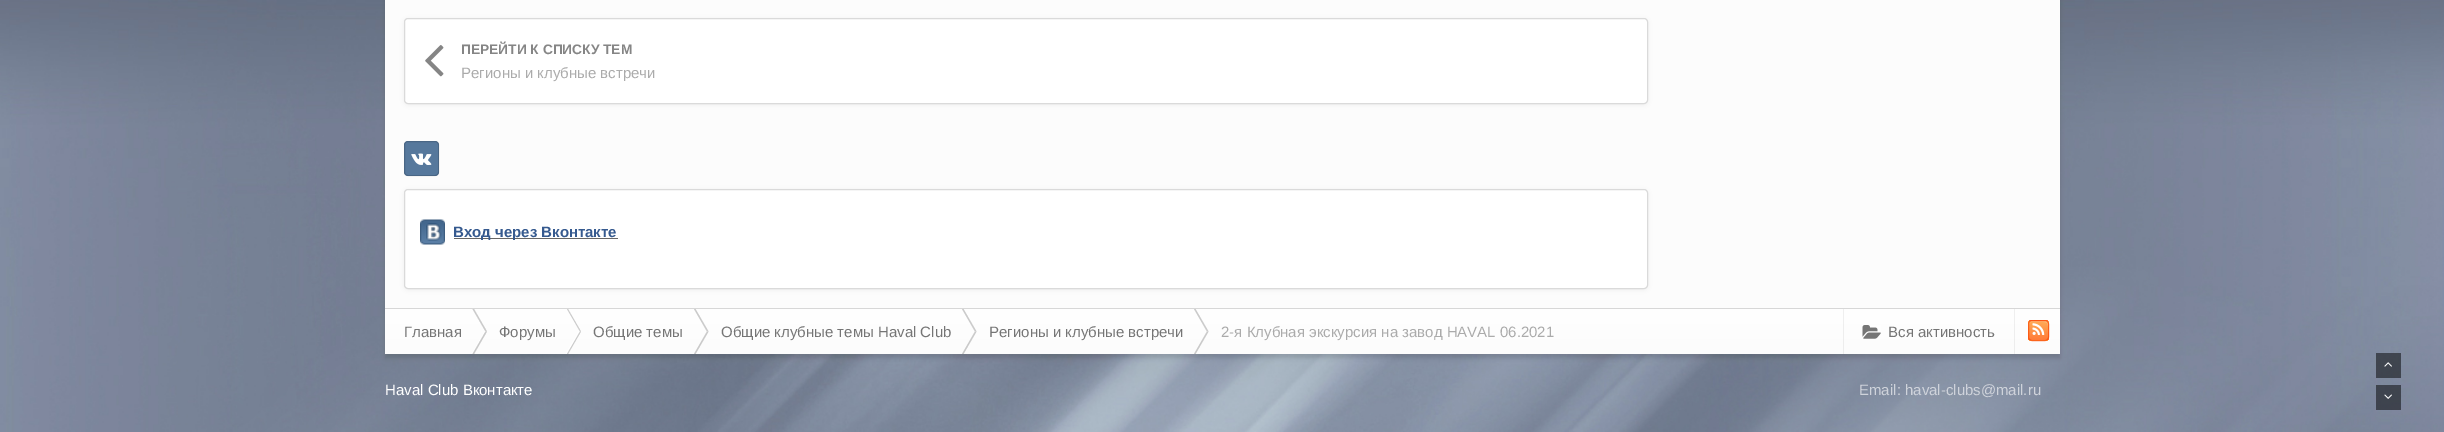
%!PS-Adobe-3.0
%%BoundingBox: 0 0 2444 432
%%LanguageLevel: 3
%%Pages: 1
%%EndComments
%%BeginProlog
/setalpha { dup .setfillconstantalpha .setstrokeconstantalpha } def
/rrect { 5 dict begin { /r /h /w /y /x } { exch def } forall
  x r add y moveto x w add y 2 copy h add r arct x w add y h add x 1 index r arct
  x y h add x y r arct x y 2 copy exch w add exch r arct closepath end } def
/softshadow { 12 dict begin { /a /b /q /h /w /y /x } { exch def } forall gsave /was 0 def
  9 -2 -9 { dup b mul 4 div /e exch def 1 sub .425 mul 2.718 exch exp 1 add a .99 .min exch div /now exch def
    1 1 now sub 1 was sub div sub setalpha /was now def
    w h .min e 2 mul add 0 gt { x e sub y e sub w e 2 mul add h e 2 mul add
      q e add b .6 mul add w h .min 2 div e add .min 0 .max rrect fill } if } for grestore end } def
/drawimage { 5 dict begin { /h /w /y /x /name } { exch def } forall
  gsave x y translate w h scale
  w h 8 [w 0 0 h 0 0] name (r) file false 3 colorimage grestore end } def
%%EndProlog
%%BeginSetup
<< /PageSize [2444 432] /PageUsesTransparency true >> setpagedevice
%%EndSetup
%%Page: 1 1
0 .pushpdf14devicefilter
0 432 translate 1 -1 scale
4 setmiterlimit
1 setgray
0 0 2444 432 rectfill
(images/1.raw) 0 0 2444 432 drawimage
0 setgray
385 -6 1675 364 0 2 0.12 softshadow
0.988 setgray
385 0 1675 308 rectfill
0 setgray
404 19 1244 86 4 2.5 0.05 softshadow
1 setgray
404.5 18.5 1243 85 3.5 rrect gsave fill grestore
0.855 setgray
stroke
(images/2.raw) 425 45 19 32 drawimage
0.337 0.471 0.612 setrgbcolor
404 141 35 35 4 rrect fill
0.15 setalpha
0 setgray
404.5 141.5 34 34 3.5 rrect stroke
1 setalpha
(images/3.raw) 411 153 21 12 drawimage
404 190 1244 100 4 2.5 0.05 softshadow
1 setgray
404.5 189.5 1243 99 3.5 rrect gsave fill grestore
0.855 setgray
stroke
(images/4.raw) 420 219 25 26 drawimage
0.4 setgray
454 238 164 1 rectfill
gsave newpath 385 309 moveto 2060 309 lineto 2060 354 lineto 385 354 lineto closepath clip newpath
<< /ShadingType 2 /ColorSpace /DeviceRGB /Coords [1223 309 1223 354] /Extend [true true] /Function << /FunctionType 2 /Domain [0 1] /C0 [1 1 1] /C1 [0.988 0.988 0.988] /N 1 >> >> shfill grestore
0.843 setgray
385 308 1675 1 rectfill
0.796 setgray
newpath 472.5 309 moveto 474 309 lineto 487 331.5 lineto 485.5 331.5 lineto closepath fill
1 setgray
newpath 484.5 331.5 moveto 485.5 331.5 lineto 472.5 354 lineto 471.5 354 lineto closepath fill
0.792 setgray
newpath 485.5 331.5 moveto 487 331.5 lineto 474 354 lineto 472.5 354 lineto closepath fill
0.796 setgray
newpath 567 309 moveto 568 309 lineto 581 331.5 lineto 580 331.5 lineto closepath fill
1 setgray
newpath 578.5 331.5 moveto 580 331.5 lineto 567 354 lineto 565.5 354 lineto closepath fill
0.792 setgray
newpath 580 331.5 moveto 581 331.5 lineto 568 354 lineto 567 354 lineto closepath fill
0.796 setgray
newpath 694 309 moveto 695.5 309 lineto 708.5 331.5 lineto 707 331.5 lineto closepath fill
0.792 setgray
newpath 707 331.5 moveto 708.5 331.5 lineto 695.5 354 lineto 694 354 lineto closepath fill
0.796 setgray
newpath 962 309 moveto 963.5 309 lineto 976.5 331.5 lineto 975 331.5 lineto closepath fill
0.792 setgray
newpath 975 331.5 moveto 976.5 331.5 lineto 963.5 354 lineto 962 354 lineto closepath fill
0.796 setgray
newpath 1194 309 moveto 1195.5 309 lineto 1208.5 331.5 lineto 1207 331.5 lineto closepath fill
0.792 setgray
newpath 1207 331.5 moveto 1208.5 331.5 lineto 1195.5 354 lineto 1194 354 lineto closepath fill
0.06 setalpha
0 setgray
2014 309 1 45 rectfill
1843 309 1 45 rectfill
1 setalpha
(images/5.raw) 1862 325 19 14 drawimage
gsave
2028 320 21 21 4 rrect clip newpath
gsave newpath 2028 320 moveto 2049 320 lineto 2049 321 lineto 2028 321 lineto closepath clip newpath
<< /ShadingType 2 /ColorSpace /DeviceRGB /Coords [2038 303 2038 321] /Extend [true true] /Function << /FunctionType 2 /Domain [0 1] /C0 [1 0.671 0.341] /C1 [1 0.486 0.22] /N 1 >> >> shfill grestore
gsave newpath 2028 321 moveto 2049 321 lineto 2049 340 lineto 2028 340 lineto closepath clip newpath
<< /ShadingType 2 /ColorSpace /DeviceRGB /Coords [2038 321 2038 340] /Extend [true true] /Function << /FunctionType 2 /Domain [0 1] /C0 [1 0.671 0.341] /C1 [1 0.486 0.22] /N 1 >> >> shfill grestore
gsave newpath 2028 340 moveto 2049 340 lineto 2049 341 lineto 2028 341 lineto closepath clip newpath
<< /ShadingType 2 /ColorSpace /DeviceRGB /Coords [2038 340 2038 359] /Extend [true true] /Function << /FunctionType 2 /Domain [0 1] /C0 [1 0.671 0.341] /C1 [1 0.486 0.22] /N 1 >> >> shfill grestore
grestore
0.2 setalpha
1 setgray
newpath 2031 322 moveto 2043 322 lineto 2047 322 2048 323.5 2048 326 curveto 2048 320 2047 321 2041 321 curveto 2034 321 lineto 2032 321 2029.5 320.5 2029 323.5 curveto 2029.5 322.5 2030 322 2031 322 curveto closepath 2048 337.5 moveto 2048 338.5 lineto closepath eofill
0.66 setalpha
0.976 0.259 0 setrgbcolor
2028.5 320.5 20 20 3.5 rrect stroke
1 setalpha
(images/6.raw) 2032 323 13 12 drawimage
0.5 setalpha
0 setgray
2376 353 25 25 rectfill
1 setalpha
(images/7.raw) 2384 362 8 5 drawimage
0.5 setalpha
2376 385 25 25 rectfill
1 setalpha
(images/8.raw) 2384 394 8 5 drawimage
/LiberationSans-Bold [13.75 0 0 -13.75 0 0] selectfont
0.522 setgray
461 54 moveto (ПЕРЕЙТИ К СПИСКУ ТЕМ) show
/LiberationSans-Regular [15 0 0 -15 0 0] selectfont
0.671 setgray
461 78 moveto (Регионы и клубные встречи) show
/LiberationSans-Bold [15 0 0 -15 0 0] selectfont
0.212 0.353 0.561 setrgbcolor
453 237 moveto (Вход через Вконтакте) show
/LiberationSans-Regular [15 0 0 -15 0 0] selectfont
0.459 setgray
404 337 moveto (Главная) show
499 337 moveto (Форумы) show
593 337 moveto (Общие темы) show
721 337 moveto (Общие клубные темы Haval Club) show
989 337 moveto (Регионы и клубные встречи) show
0.671 setgray
1221 337 moveto (2-я Клубная экскурсия на завод HAVAL 06.2021) show
0.459 setgray
1888 337 moveto (Вся активность) show
1 setgray
385 395 moveto (Haval Club Вконтакте) show
0.812 0.827 0.859 setrgbcolor
1859 395 moveto (Email: haval-clubs@mail.ru) show
.poppdf14devicefilter showpage
%%EOF
